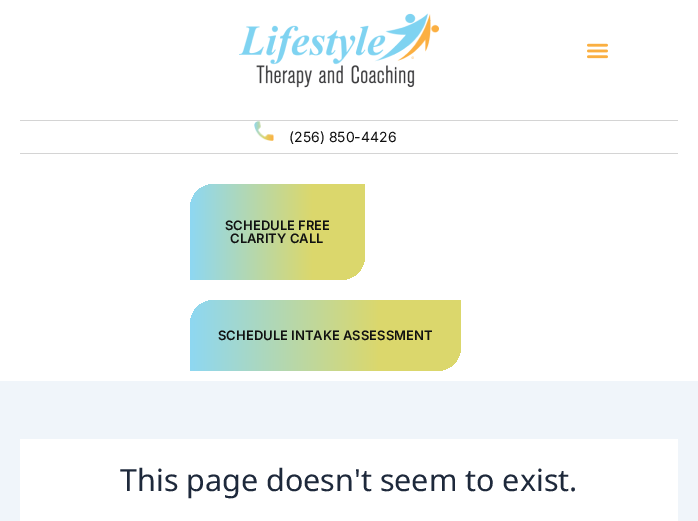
%!PS-Adobe-3.0
%%BoundingBox: 0 0 698 521
%%LanguageLevel: 3
%%Pages: 1
%%EndComments
%%BeginProlog
/drawimage { 5 dict begin { /h /w /y /x /name } { exch def } forall
  gsave x y translate w h scale
  w h 8 [w 0 0 h 0 0] name (r) file false 3 colorimage grestore end } def
%%EndProlog
%%BeginSetup
<< /PageSize [698 521] >> setpagedevice
%%EndSetup
%%Page: 1 1
0 521 translate 1 -1 scale
4 setmiterlimit
0.941 0.961 0.98 setrgbcolor
0 0 698 521 rectfill
1 setgray
0 0 698 381 rectfill
(images/1.raw) 239 13 200 75 drawimage
(images/2.raw) 587 43 21 16 drawimage
0.831 setgray
20 120 658 1 rectfill
20 153 658 1 rectfill
(images/3.raw) 254 121 20 20 drawimage
gsave newpath 215 184 moveto 365 184 lineto 365 255 lineto 365 269 354 280 340 280 curveto 190 280 lineto 190 209 lineto 190 195 201 184 215 184 curveto closepath clip newpath
<< /ShadingType 2 /ColorSpace /DeviceRGB /Coords [190 232 365 232] /Extend [true true] /Function << /FunctionType 3 /Domain [0 1] /Functions [<< /FunctionType 2 /Domain [0 1] /C0 [0.557 0.843 0.949] /C1 [0.859 0.843 0.424] /N 1 >> << /FunctionType 2 /Domain [0 1] /C0 [0.859 0.843 0.424] /C1 [0.859 0.843 0.424] /N 1 >>] /Bounds [0.7] /Encode [0 1 0 1] >> >> shfill grestore
gsave newpath 215 300 moveto 461 300 lineto 461 346 lineto 461 360 450 371 436 371 curveto 190 371 lineto 190 325 lineto 190 311 201 300 215 300 curveto closepath clip newpath
<< /ShadingType 2 /ColorSpace /DeviceRGB /Coords [190 336 461 336] /Extend [true true] /Function << /FunctionType 3 /Domain [0 1] /Functions [<< /FunctionType 2 /Domain [0 1] /C0 [0.557 0.843 0.949] /C1 [0.859 0.843 0.424] /N 1 >> << /FunctionType 2 /Domain [0 1] /C0 [0.859 0.843 0.424] /C1 [0.859 0.843 0.424] /N 1 >>] /Bounds [0.7] /Encode [0 1 0 1] >> >> shfill grestore
1 setgray
20 439 658 82 rectfill
/Inter-Regular [14 0 0 -14 0 0] selectfont
0.067 setgray
289 142 moveto (\(256\) 850-4426) show
/Inter-SemiBold [13 0 0 -13 0 0] selectfont
225 230 moveto (SCHEDULE FREE) show
230 243 moveto (CLARITY CALL) show
218 340 moveto (SCHEDULE INTAKE ASSESSMENT) show
/NotoSans-Regular [30.5 0 0 -30.5 0 0] selectfont
0.118 0.161 0.231 setrgbcolor
120 491 moveto (This page doesn't seem to exist.) show
showpage
%%EOF
